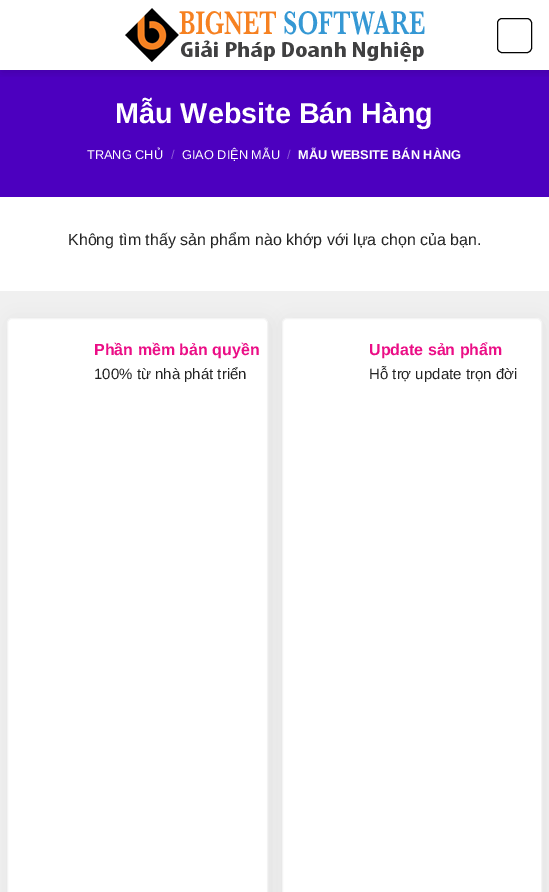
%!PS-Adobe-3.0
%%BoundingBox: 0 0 549 892
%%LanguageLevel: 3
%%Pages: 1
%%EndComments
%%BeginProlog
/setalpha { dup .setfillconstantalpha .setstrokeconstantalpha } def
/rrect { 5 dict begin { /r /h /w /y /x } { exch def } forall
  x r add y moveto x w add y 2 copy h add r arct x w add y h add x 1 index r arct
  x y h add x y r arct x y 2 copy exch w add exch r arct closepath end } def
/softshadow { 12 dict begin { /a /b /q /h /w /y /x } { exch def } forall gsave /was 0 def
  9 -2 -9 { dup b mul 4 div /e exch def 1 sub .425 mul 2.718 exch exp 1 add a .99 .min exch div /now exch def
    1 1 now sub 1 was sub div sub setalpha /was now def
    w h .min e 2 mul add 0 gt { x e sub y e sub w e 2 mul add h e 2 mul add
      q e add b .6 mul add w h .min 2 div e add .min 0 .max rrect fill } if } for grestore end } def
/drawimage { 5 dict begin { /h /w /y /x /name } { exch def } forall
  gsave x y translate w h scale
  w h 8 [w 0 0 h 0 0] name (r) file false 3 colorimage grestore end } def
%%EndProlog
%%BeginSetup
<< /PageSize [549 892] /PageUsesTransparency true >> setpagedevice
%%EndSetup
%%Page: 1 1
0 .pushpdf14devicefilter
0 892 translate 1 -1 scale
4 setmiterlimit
1 setgray
0 0 549 892 rectfill
0.298 0 0.749 setrgbcolor
0 70 549 127 rectfill
gsave
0 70 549 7 rectclip
0 setgray
2 2 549 70 0 5 0.14 softshadow
grestore
(images/1.raw) 125 8 300 54 drawimage
0.008 setgray
497.5 18.5 34 34 4.5 rrect stroke
0.941 setgray
0 291 549 601 rectfill
0 setgray
9 320 261 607 5 10 0.06 softshadow
1 setgray
7.5 318.5 260 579 4.5 rrect gsave fill grestore
0.957 setgray
stroke
0 setgray
284 320 260 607 5 10 0.06 softshadow
1 setgray
282.5 318.5 259 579 4.5 rrect gsave fill grestore
0.957 setgray
stroke
/LiberationSans-Bold [28.75 0 0 -28.75 0 0] selectfont
1 setgray
115 123 moveto (Mẫu Website Bán Hàng) show
/LiberationSans-Regular [12.75 0 0 -12.75 0 0] selectfont
87 159 moveto (TRANG CHỦ) show
0.545 0.349 0.835 setrgbcolor
171 159 moveto (/) show
1 setgray
182 159 moveto (GIAO DIỆN MẪU) show
0.545 0.349 0.835 setrgbcolor
287 159 moveto (/) show
/LiberationSans-Bold [12.75 0 0 -12.75 0 0] selectfont
1 setgray
298 159 moveto (MẪU WEBSITE BÁN HÀNG) show
/LiberationSans-Regular [16 0 0 -16 0 0] selectfont
0.137 setgray
68 245 moveto (Không tìm thấy sản phẩm nào khớp với lựa chọn của bạn.) show
/LiberationSans-Bold [16 0 0 -16 0 0] selectfont
0.922 0.055 0.525 setrgbcolor
94 355 moveto (Phần mềm bản quyền) show
/LiberationSans-Regular [15 0 0 -15 0 0] selectfont
0.137 setgray
94 379 moveto (100% từ nhà phát triển) show
/LiberationSans-Bold [16 0 0 -16 0 0] selectfont
0.922 0.055 0.525 setrgbcolor
369 355 moveto (Update sản phẩm) show
/LiberationSans-Regular [15 0 0 -15 0 0] selectfont
0.137 setgray
369 379 moveto (Hỗ trợ update trọn đời) show
.poppdf14devicefilter showpage
%%EOF
